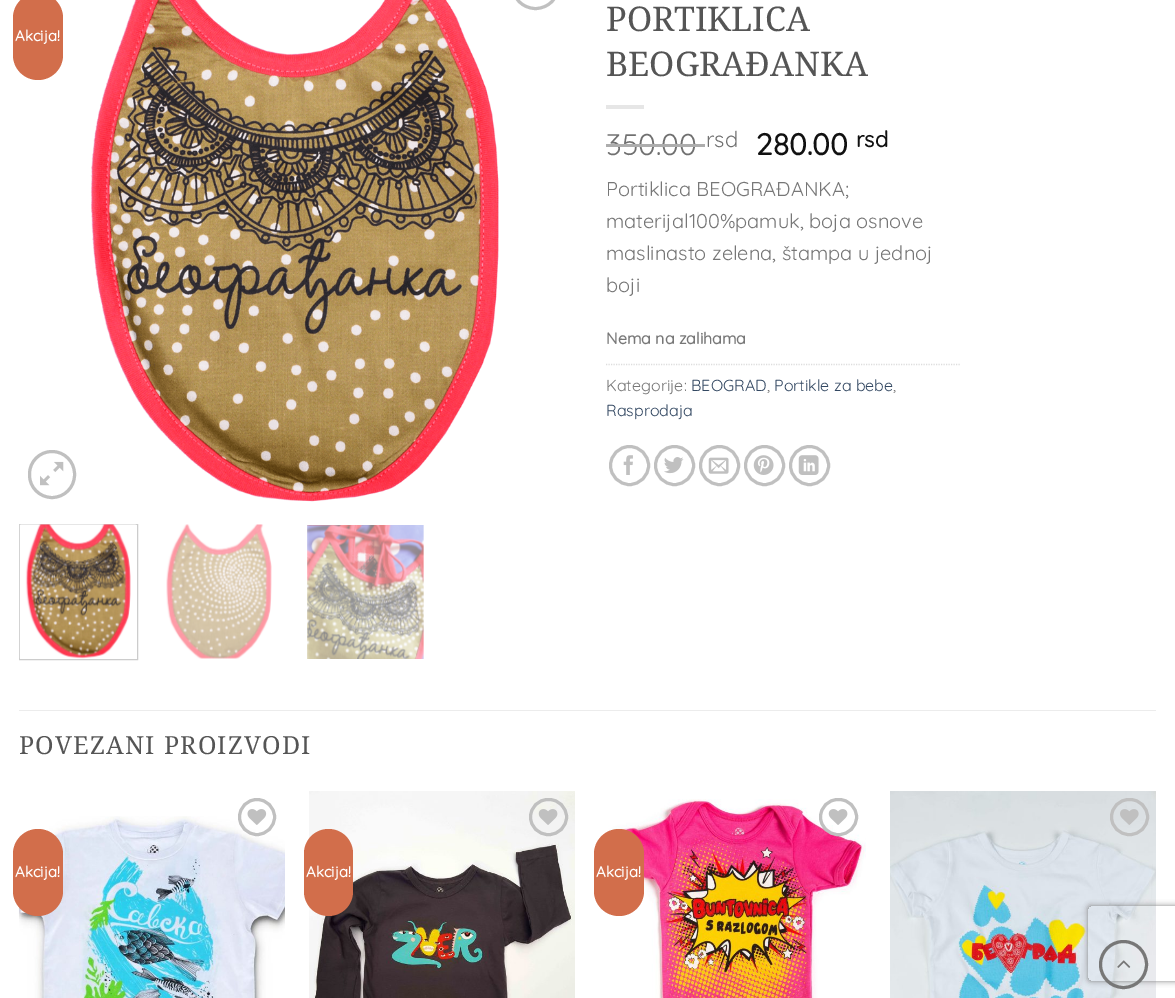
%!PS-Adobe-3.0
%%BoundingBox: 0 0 1175 998
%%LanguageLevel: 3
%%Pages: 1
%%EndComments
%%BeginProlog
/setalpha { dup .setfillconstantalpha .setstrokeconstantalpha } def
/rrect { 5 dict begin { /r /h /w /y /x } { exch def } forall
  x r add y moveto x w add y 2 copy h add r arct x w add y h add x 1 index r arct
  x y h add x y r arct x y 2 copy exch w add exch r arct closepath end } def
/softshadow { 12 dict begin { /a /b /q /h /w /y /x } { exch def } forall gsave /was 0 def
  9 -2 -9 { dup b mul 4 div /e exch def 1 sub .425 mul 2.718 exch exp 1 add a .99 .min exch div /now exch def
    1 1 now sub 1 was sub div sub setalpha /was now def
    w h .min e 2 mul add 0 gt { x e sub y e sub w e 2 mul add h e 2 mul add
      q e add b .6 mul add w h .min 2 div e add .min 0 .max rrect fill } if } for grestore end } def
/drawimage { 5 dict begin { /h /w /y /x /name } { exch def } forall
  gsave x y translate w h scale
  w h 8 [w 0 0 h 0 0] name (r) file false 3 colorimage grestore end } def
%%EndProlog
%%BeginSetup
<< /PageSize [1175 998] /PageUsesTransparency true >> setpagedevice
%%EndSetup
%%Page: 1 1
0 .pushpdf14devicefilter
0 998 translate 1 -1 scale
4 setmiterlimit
1 setgray
0 0 1175 998 rectfill
0.753 setgray
3 setlinewidth
512.5 -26.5 46 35 23 rrect stroke
0.824 0.431 0.294 setrgbcolor
13 -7 50 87 25 rrect fill
(images/1.raw) 90 0 409 502 drawimage
0.753 setgray
29.5 451.5 45 46 22.5 rrect stroke
(images/2.raw) 40 461 24 25 drawimage
0.8 setgray
1 setlinewidth
19.5 524.5 118 135 rectstroke
(images/3.raw) 19 524 118 135 drawimage
(images/4.raw) 166 524 106 135 drawimage
(images/5.raw) 307 525 117 134 drawimage
0.902 setgray
606 105 38 4 rectfill
0.867 setgray
1.2 setlinewidth
[1.25 1.25] 0 setdash
newpath 606 364.5 moveto 960 364.5 lineto stroke
0.753 setgray
3 setlinewidth
[] 0 setdash
newpath 629.5 465.5 19 0 360 arc closepath stroke
(images/6.raw) 623 455 10 20 drawimage
newpath 674.5 465.5 19 0 360 arc closepath stroke
(images/7.raw) 664 457 20 17 drawimage
newpath 719.5 465.5 19 0 360 arc closepath stroke
(images/8.raw) 708 457 21 17 drawimage
newpath 764.5 465.5 19 0 360 arc closepath stroke
(images/9.raw) 753 455 21 20 drawimage
newpath 809.5 465.5 19 0 360 arc closepath stroke
(images/10.raw) 798 455 21 20 drawimage
0.925 setgray
19 710 1137 1 rectfill
(images/12.raw) 18 816 267 182 drawimage
0.753 setgray
newpath 257 817 17.5 0 360 arc closepath stroke
(images/11.raw) 247 809 20 16 drawimage
0.824 0.431 0.294 setrgbcolor
13 829 50 87 25 rrect fill
(images/13.raw) 309 791 266 207 drawimage
0.753 setgray
530.5 799.5 36 35 17.5 rrect stroke
(images/14.raw) 538 809 20 16 drawimage
0.824 0.431 0.294 setrgbcolor
304 829 49 87 24.5 rrect fill
(images/16.raw) 607 799 259 199 drawimage
0.753 setgray
820.5 799.5 36 35 17.5 rrect stroke
(images/15.raw) 828 809 20 16 drawimage
0.824 0.431 0.294 setrgbcolor
594 829 50 87 25 rrect fill
(images/17.raw) 890 791 266 207 drawimage
0.753 setgray
1111.5 799.5 36 35 17.5 rrect stroke
(images/18.raw) 1120 809 19 16 drawimage
gsave
newpath 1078 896 moveto 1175 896 lineto 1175 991 lineto 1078 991 lineto closepath 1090.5 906 moveto 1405.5 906 lineto 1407 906 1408 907 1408 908.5 curveto 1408 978.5 lineto 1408 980 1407 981 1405.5 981 curveto 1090.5 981 lineto 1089 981 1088 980 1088 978.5 curveto 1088 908.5 lineto 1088 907 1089 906 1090.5 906 curveto closepath eoclip newpath
0.502 setgray
1088 906 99 75 2.5 3 1 softshadow
grestore
0.467 setgray
newpath 1123.5 964.5 23 0 360 arc closepath stroke
(images/19.raw) 1117 960 14 8 drawimage
/Quicksand-Bold [15 0 0 -15 0 0] selectfont
1 setgray
15 41 moveto (Akcija!) show
/NotoSerif-Regular [34 0 0 -34 0 0] selectfont
0.333 setgray
606 31 moveto (PORTIKLICA) show
606 76 moveto (BEOGRAĐANKA) show
/Quicksand-Regular [30 0 0 -30 0 0] selectfont
0.439 setgray
606 155 moveto (350.00) show
0.678 setgray
606 144 99 3 rectfill
/Quicksand-Regular [22 0 0 -22 0 0] selectfont
0.439 setgray
706 147 moveto (rsd) show
/Quicksand-Bold [30 0 0 -30 0 0] selectfont
0.067 setgray
756 155 moveto (280.00) show
/Quicksand-Bold [22 0 0 -22 0 0] selectfont
856 147 moveto (rsd) show
/Quicksand-Regular [20 0 0 -20 0 0] selectfont
0.467 setgray
606 196 moveto (Portiklica BEOGRAĐANKA;) show
606 228 moveto (materijal100%pamuk, boja osnove) show
606 260 moveto (maslinasto zelena, štampa u jednoj) show
606 292 moveto (boji) show
/Quicksand-Bold [16 0 0 -16 0 0] selectfont
606 344 moveto (Nema na zalihama) show
/Quicksand-Regular [16 0 0 -16 0 0] selectfont
606 391 moveto (Kategorije:) show
0.2 0.282 0.384 setrgbcolor
691 391 moveto (BEOGRAD) show
0.467 setgray
767 391 moveto (,) show
0.2 0.282 0.384 setrgbcolor
774 391 moveto (Portikle za bebe) show
0.467 setgray
893 391 moveto (,) show
0.2 0.282 0.384 setrgbcolor
606 416 moveto (Rasprodaja) show
/NotoSerif-Regular [25 0 0 -25 0 0] selectfont
0.333 setgray
19 754 moveto 1.25 0 (POVEZANI PROIZVODI) ashow
/Quicksand-Bold [15 0 0 -15 0 0] selectfont
1 setgray
15 877 moveto (Akcija!) show
306 877 moveto (Akcija!) show
596 877 moveto (Akcija!) show
.poppdf14devicefilter showpage
%%EOF
